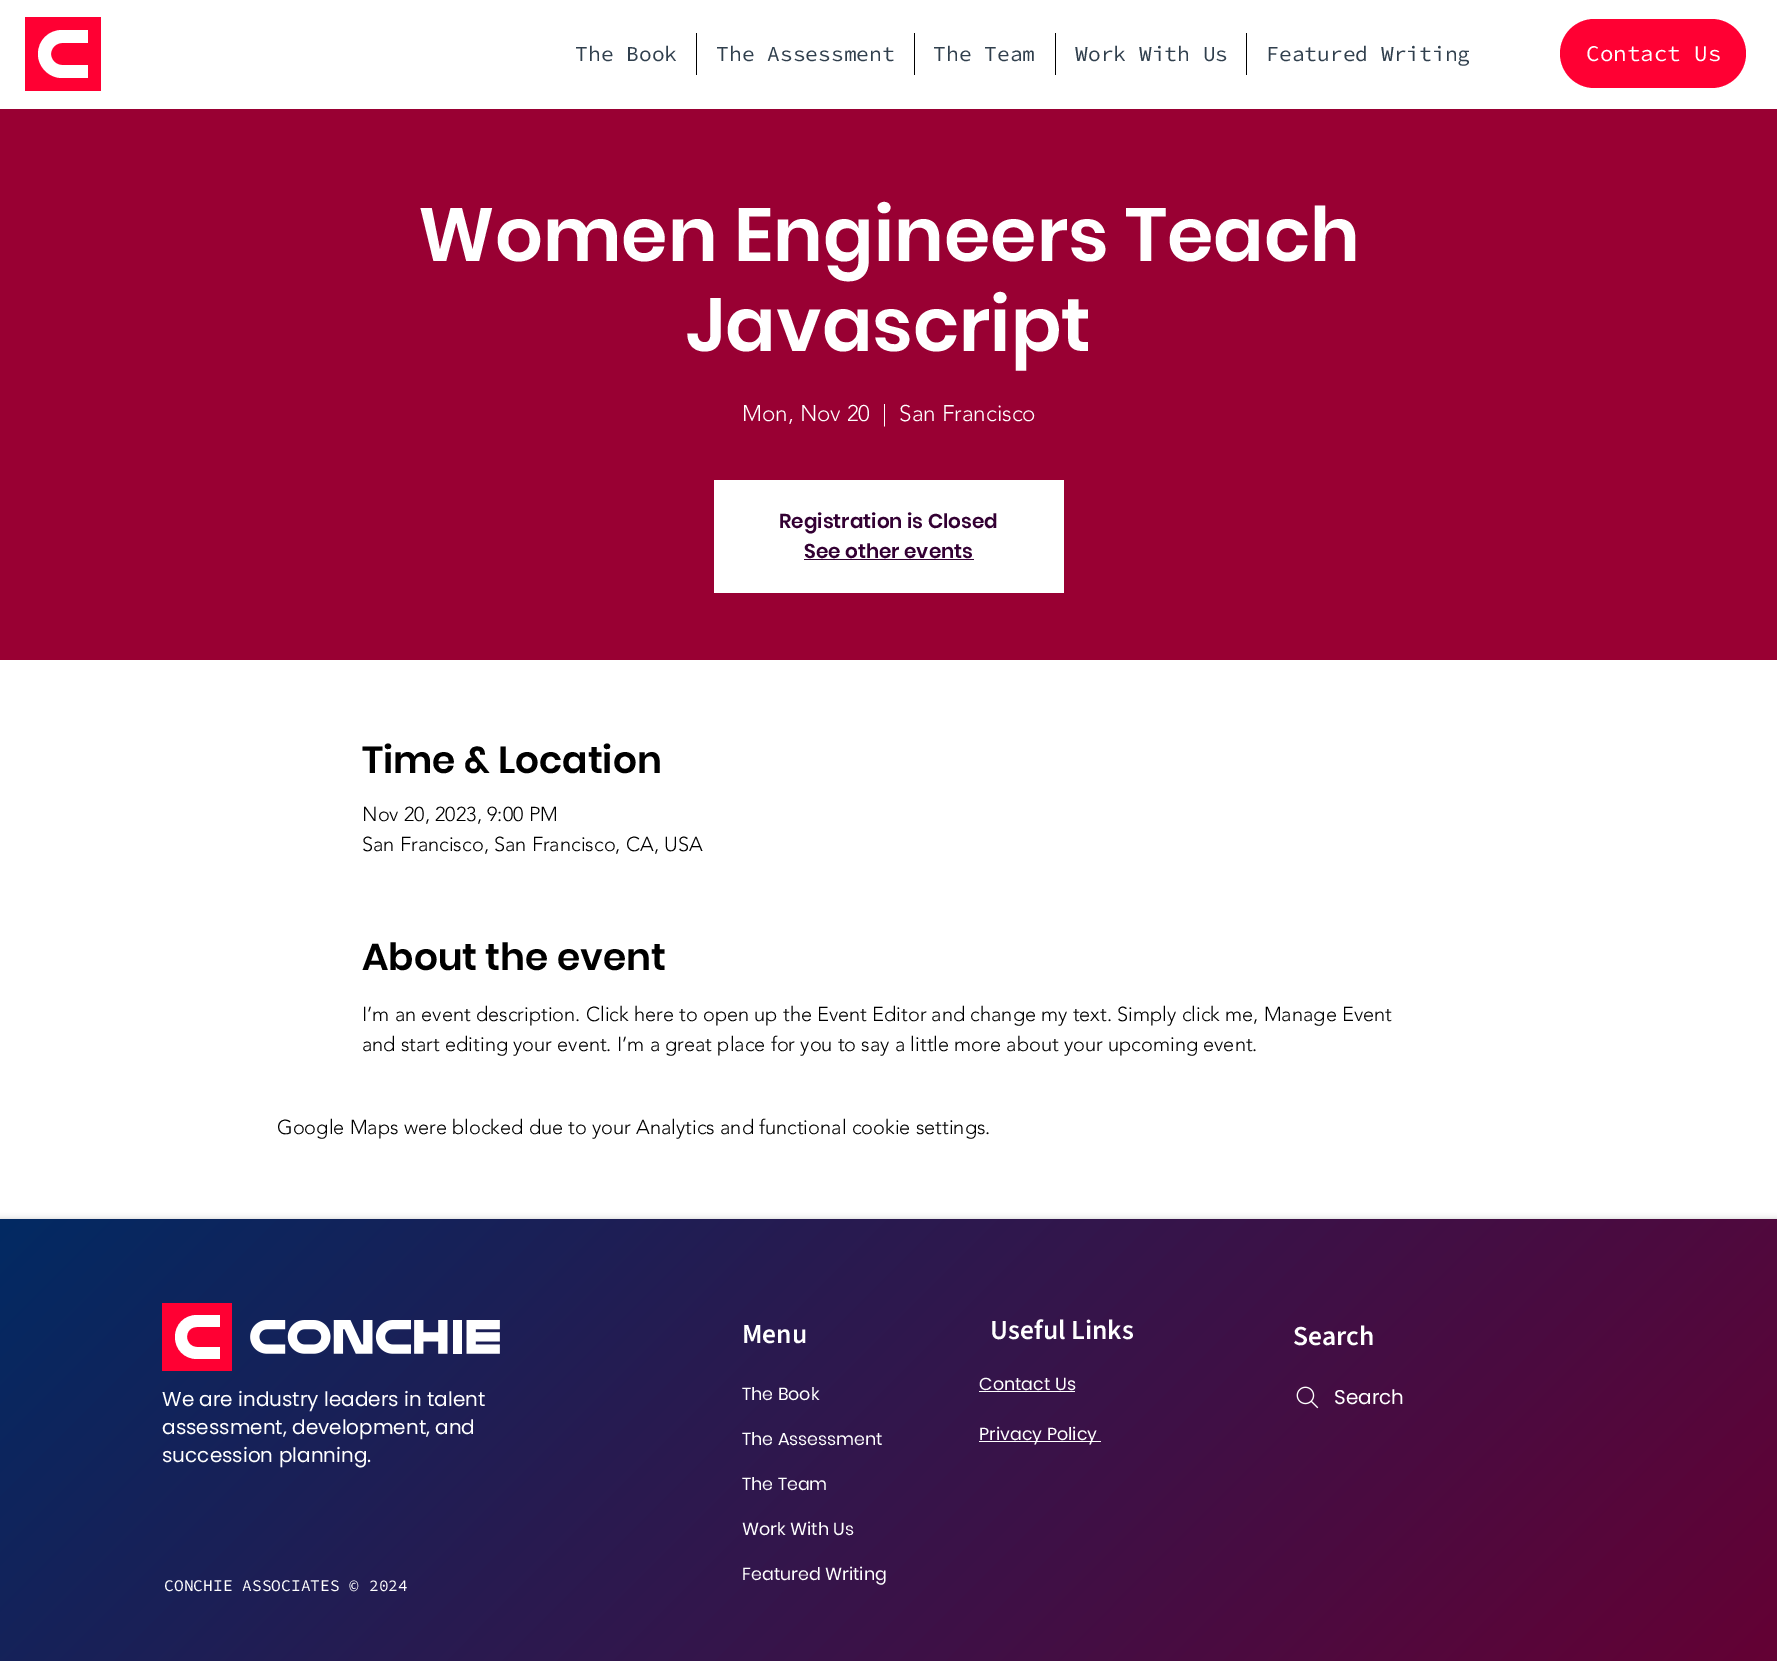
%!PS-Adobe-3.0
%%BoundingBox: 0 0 1777 1661
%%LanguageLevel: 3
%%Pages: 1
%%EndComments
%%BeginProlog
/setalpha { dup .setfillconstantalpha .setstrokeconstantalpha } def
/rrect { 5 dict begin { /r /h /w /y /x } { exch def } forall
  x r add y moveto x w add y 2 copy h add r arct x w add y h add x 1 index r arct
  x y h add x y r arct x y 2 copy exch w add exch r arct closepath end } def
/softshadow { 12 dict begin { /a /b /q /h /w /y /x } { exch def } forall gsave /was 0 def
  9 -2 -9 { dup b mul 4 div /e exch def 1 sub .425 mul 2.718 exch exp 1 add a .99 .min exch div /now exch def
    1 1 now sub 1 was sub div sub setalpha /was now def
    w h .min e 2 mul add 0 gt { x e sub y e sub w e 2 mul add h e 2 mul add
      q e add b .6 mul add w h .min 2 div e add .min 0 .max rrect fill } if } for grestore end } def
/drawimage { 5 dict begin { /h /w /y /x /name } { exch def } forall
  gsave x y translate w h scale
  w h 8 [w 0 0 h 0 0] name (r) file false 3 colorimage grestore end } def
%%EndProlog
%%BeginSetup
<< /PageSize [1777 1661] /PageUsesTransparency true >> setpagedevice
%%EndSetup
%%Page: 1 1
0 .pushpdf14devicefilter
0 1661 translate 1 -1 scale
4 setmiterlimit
1 setgray
0 0 1777 1661 rectfill
1 0 0.2 setrgbcolor
25 17 76 74 rectfill
1 setgray
newpath 88 43 moveto 88 30 lineto 62 30 lineto 49 30 38 40 38 54 curveto 38 67 49 78 62 78 curveto 88 78 lineto 88 65 lineto 62 65 lineto 56 65 51 60 51 54 curveto 51 48 56 43 62 43 curveto closepath fill
0 setgray
696 33 1 42 rectfill
914 33 1 42 rectfill
1055 33 1 42 rectfill
1246 33 1 42 rectfill
1 0 0.2 setrgbcolor
1560 19 186 69 34.5 rrect fill
0.6 0 0.2 setrgbcolor
0 109 1777 551 rectfill
1 setgray
714 480 350 113 rectfill
0.2 0 0.2 setrgbcolor
804 559 170 1 rectfill
0 setgray
0 1219 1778 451 0 3 0.2 softshadow
gsave newpath 0 1219 moveto 1777 1219 lineto 1777 1661 lineto 0 1661 lineto closepath clip newpath
<< /ShadingType 2 /ColorSpace /DeviceRGB /Coords [321 898 1457 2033] /Extend [true true] /Function << /FunctionType 2 /Domain [0 1] /C0 [0.008 0.165 0.388] /C1 [0.4 0 0.2] /N 1 >> >> shfill grestore
(images/1.raw) 1296 1386 23 23 drawimage
1 0 0.2 setrgbcolor
162 1303 70 68 rectfill
1 setgray
newpath 220 1327 moveto 220 1315 lineto 197 1315 lineto 184 1315 175 1325 175 1337 curveto 175 1349 184 1359 197 1359 curveto 220 1359 lineto 220 1347 lineto 197 1347 lineto 191 1347 187 1342 187 1337 curveto 187 1331 191 1327 197 1327 curveto closepath fill
(images/2.raw) 250 1320 250 34 drawimage
979 1391 96 1 rectfill
979 1441 122 1 rectfill
/SourceCodePro-Regular [21.25 0 0 -21.25 0 0] selectfont
0.188 0.247 0.302 setrgbcolor
575 61 moveto (The Book) show
716 61 moveto (The Assessment) show
933 61 moveto (The Team) show
1075 61 moveto (Work With Us) show
1266 61 moveto (Featured Writing) show
/SourceCodePro-Regular [22.5 0 0 -22.5 0 0] selectfont
1 setgray
1586 61 moveto (Contact Us) show
/Poppins-SemiBold [75 0 0 -75 0 0] selectfont
418 261 moveto (Women Engineers Teach) show
686 351 moveto (Javascript) show
/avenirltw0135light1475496-Light [22.5 0 0 -22.5 0 0] selectfont
742 421 moveto (Mon, Nov 20) show
882 421 moveto (|) show
899 421 moveto (San Francisco) show
/Poppins-SemiBold [20 0 0 -20 0 0] selectfont
0.2 0 0.2 setrgbcolor
779 528 moveto (Registration is Closed) show
804 558 moveto (See other events) show
/Poppins-SemiBold [37.5 0 0 -37.5 0 0] selectfont
0 setgray
362 773 moveto (Time & Location) show
/avenirltw0135light1475496-Light [20 0 0 -20 0 0] selectfont
362 821 moveto (Nov 20, 2023, 9:00 PM) show
362 851 moveto (San Francisco, San Francisco, CA, USA) show
/Poppins-SemiBold [37.5 0 0 -37.5 0 0] selectfont
362 970 moveto (About the event) show
/avenirltw0135light1475496-Light [20 0 0 -20 0 0] selectfont
362 1021 moveto (I’m an event description. Click here to open up the Event Editor and change my text. Simply click me, Manage Event) show
362 1051 moveto (and start editing your event. I’m a great place for you to say a little more about your upcoming event.) show
277 1134 moveto (Google Maps were blocked due to your Analytics and functional cookie settings.) show
/SourceSans3-SemiBold [27.5 0 0 -27.5 0 0] selectfont
1 setgray
742 1343 moveto (Menu) show
990 1339 moveto (Useful Links) show
/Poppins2-Regular [17.5 0 0 -17.5 0 0] selectfont
742 1400 moveto (The Book) show
742 1445 moveto (The Assessment) show
742 1490 moveto (The Team) show
742 1535 moveto (Work With Us) show
742 1580 moveto (Featured Writing) show
/SourceSans3-SemiBold [27.5 0 0 -27.5 0 0] selectfont
1293 1345 moveto (Search) show
/Poppins-Regular [20 0 0 -20 0 0] selectfont
1334 1404 moveto (Search) show
162 1406 moveto (We are industry leaders in talent) show
162 1434 moveto (assessment, development, and) show
162 1462 moveto (succession planning.) show
/SourceCodePro-Regular [16.25 0 0 -16.25 0 0] selectfont
164 1591 moveto (CONCHIE ASSOCIATES © 2024) show
/Poppins-Regular [17.5 0 0 -17.5 0 0] selectfont
979 1390 moveto (Contact Us) show
979 1440 moveto (Privacy Policy) show
.poppdf14devicefilter showpage
%%EOF
